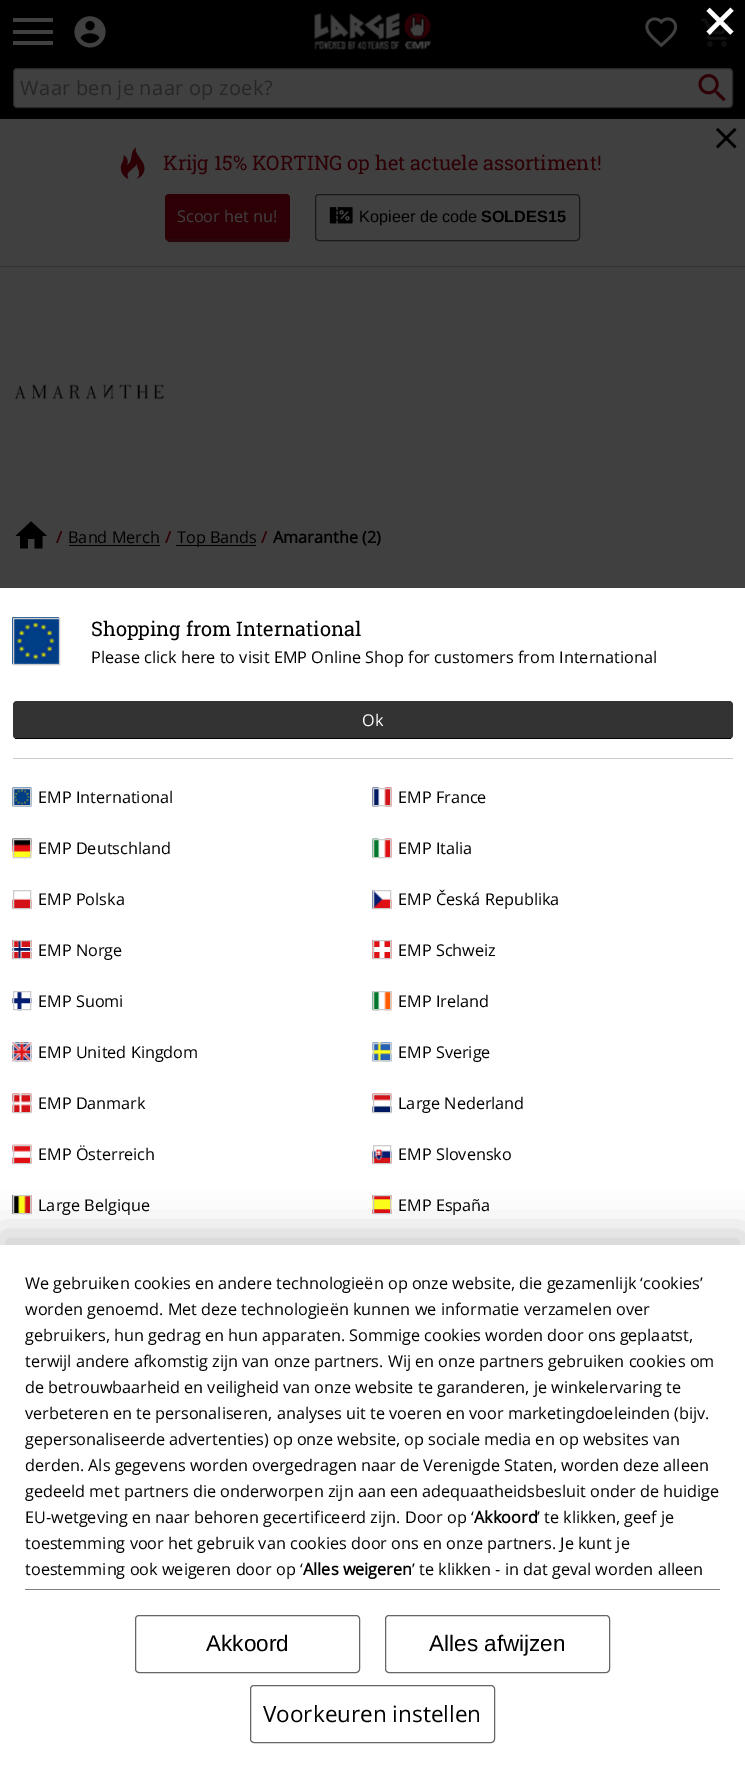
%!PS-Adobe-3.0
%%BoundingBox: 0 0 745 1779
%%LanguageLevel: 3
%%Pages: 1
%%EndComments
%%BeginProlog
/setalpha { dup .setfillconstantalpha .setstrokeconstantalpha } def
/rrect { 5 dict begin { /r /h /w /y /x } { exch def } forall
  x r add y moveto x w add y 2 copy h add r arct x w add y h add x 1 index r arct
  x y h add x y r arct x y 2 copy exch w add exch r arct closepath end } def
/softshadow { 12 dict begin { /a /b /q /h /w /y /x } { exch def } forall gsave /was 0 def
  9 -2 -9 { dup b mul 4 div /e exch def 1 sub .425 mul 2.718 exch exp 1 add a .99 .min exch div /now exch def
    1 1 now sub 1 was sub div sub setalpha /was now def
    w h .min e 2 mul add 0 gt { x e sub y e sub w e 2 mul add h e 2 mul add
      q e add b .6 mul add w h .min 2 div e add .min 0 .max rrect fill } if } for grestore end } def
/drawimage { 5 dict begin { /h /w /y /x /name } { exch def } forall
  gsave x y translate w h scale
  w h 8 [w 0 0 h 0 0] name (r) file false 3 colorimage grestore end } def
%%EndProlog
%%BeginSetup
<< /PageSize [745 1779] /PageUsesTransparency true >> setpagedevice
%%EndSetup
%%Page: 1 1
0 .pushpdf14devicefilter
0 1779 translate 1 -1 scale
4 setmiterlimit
0.251 setgray
0 0 745 1779 rectfill
1 setgray
0 588 745 657 rectfill
(images/1.raw) 12 617 48 48 drawimage
0.8 setgray
13.5 618.5 46 46 rectstroke
0.2 setgray
13 701 720 38 4 rrect fill
0 setgray
15 738 716 1 rectfill
0.8 setgray
13 758 720 1 rectfill
(images/2.raw) 12 787 20 20 drawimage
13.5 788.5 17 17 rectstroke
(images/3.raw) 372 787 20 20 drawimage
373.5 788.5 17 17 rectstroke
(images/4.raw) 12 838 20 20 drawimage
13.5 839.5 17 18 rectstroke
(images/5.raw) 372 838 20 20 drawimage
373.5 839.5 17 18 rectstroke
(images/6.raw) 12 898 20 11 drawimage
13.5 890.5 17 18 rectstroke
(images/7.raw) 372 889 20 20 drawimage
373.5 890.5 17 18 rectstroke
(images/8.raw) 12 940 20 19 drawimage
13.5 940.5 17 18 rectstroke
(images/9.raw) 372 940 20 19 drawimage
373.5 940.5 17 18 rectstroke
(images/10.raw) 12 991 20 20 drawimage
13.5 991.5 17 18 rectstroke
(images/11.raw) 372 991 20 20 drawimage
373.5 991.5 17 18 rectstroke
(images/12.raw) 12 1042 20 20 drawimage
13.5 1043.5 17 17 rectstroke
(images/13.raw) 372 1042 20 20 drawimage
373.5 1043.5 17 17 rectstroke
(images/14.raw) 12 1093 20 20 drawimage
13.5 1094.5 17 18 rectstroke
(images/15.raw) 372 1093 20 20 drawimage
373.5 1094.5 17 18 rectstroke
(images/16.raw) 12 1144 20 20 drawimage
13.5 1145.5 17 18 rectstroke
(images/17.raw) 372 1149 20 15 drawimage
373.5 1145.5 17 18 rectstroke
(images/18.raw) 12 1195 20 19 drawimage
13.5 1195.5 17 18 rectstroke
(images/19.raw) 372 1195 20 19 drawimage
373.5 1195.5 17 18 rectstroke
0 setgray
0 0 745 119 rectfill
0.251 setgray
13 18 40 4 rectfill
13 30 40 4 rectfill
13 41 40 4 rectfill
(images/20.raw) 74 16 32 32 drawimage
(images/21.raw) 314 12 117 38 drawimage
(images/22.raw) 645 17 33 31 drawimage
(images/23.raw) 701 18 29 29 drawimage
13.5 68.5 719 39 3.5 rrect gsave fill grestore
0.149 setgray
stroke
(images/24.raw) 698 74 28 28 drawimage
0.2 setgray
0 266 745 1 rectfill
(images/25.raw) 716 127 21 22 drawimage
(images/26.raw) 120 147 25 32 drawimage
0.176 0 0.024 setrgbcolor
165 194 125 47 4 rrect fill
0.153 0.027 0.043 setrgbcolor
168 239 121 3 rectfill
0.102 setgray
315.5 194.5 264 46 3.5 rrect stroke
(images/27.raw) 329 207 24 17 drawimage
(images/28.raw) 14 384 150 16 drawimage
0 setgray
newpath 28 548.5 moveto 28 539 lineto 34.5 539 lineto 34.5 548.5 lineto 42.5 548.5 lineto 42.5 536 lineto 47 536 lineto 31 521.5 lineto 15.5 536 lineto 20 536 lineto 20 548.5 lineto closepath fill
69 545 91 1 rectfill
176 545 80 1 rectfill
0 1233 745 535 0 19 0.2 softshadow
1 setgray
0 1245 745 534 rectfill
0.502 setgray
25 1589 695 1 rectfill
0.4 setgray
135.5 1615.5 224 57 3.5 rrect stroke
385.5 1615.5 224 57 3.5 rrect stroke
250.5 1685.5 244 57 3.5 rrect stroke
/DejaVuSansMono-Regular [60 0 0 -60 0 0] selectfont
1 setgray
702 40 moveto (×) show
/RobotoSlab-Regular [20 0 0 -20 0 0] selectfont
0 setgray
91 636 moveto (Shopping from International) show
/OpenSans-Regular [16.25 0 0 -16.25 0 0] selectfont
91 663 moveto (Please click here to visit EMP Online Shop for customers from International) show
1 setgray
362 726 moveto (Ok) show
0 setgray
38 803 moveto (EMP International) show
398 803 moveto (EMP France) show
38 854 moveto (EMP Deutschland) show
398 854 moveto (EMP Italia) show
38 905 moveto (EMP Polska) show
398 905 moveto (EMP Česká Republika) show
38 956 moveto (EMP Norge) show
398 956 moveto (EMP Schweiz) show
38 1007 moveto (EMP Suomi) show
398 1007 moveto (EMP Ireland) show
38 1058 moveto (EMP United Kingdom) show
398 1058 moveto (EMP Sverige) show
38 1109 moveto (EMP Danmark) show
398 1109 moveto (Large Nederland) show
38 1160 moveto (EMP Österreich) show
398 1160 moveto (EMP Slovensko) show
38 1211 moveto (Large Belgique) show
398 1211 moveto (EMP España) show
/OpenSans-Regular [20 0 0 -20 0 0] selectfont
0.149 setgray
20 95 moveto -1 0 32 0.5 0 (Waar ben je naar op zoek?) awidthshow
/RobotoSlab-Regular [20 0 0 -20 0 0] selectfont
0.176 0 0.024 setrgbcolor
163 170 moveto (Krijg 15% KORTING op het actuele assortiment!) show
/OpenSans-Regular [16.25 0 0 -16.25 0 0] selectfont
0.251 setgray
177 222 moveto (Scoor het nu!) show
/LiberationSans-Regular [16.25 0 0 -16.25 0 0] selectfont
0 setgray
359 222 moveto (Kopieer de code) show
/LiberationSans-Bold [16.25 0 0 -16.25 0 0] selectfont
481 222 moveto (SOLDES15) show
/OpenSans-Bold [16.25 0 0 -16.25 0 0] selectfont
0.176 0 0.024 setrgbcolor
56 543 moveto (/) show
/OpenSans-Regular [16.25 0 0 -16.25 0 0] selectfont
0 setgray
68 543 moveto (Band Merch) show
/OpenSans-Bold [16.25 0 0 -16.25 0 0] selectfont
0.176 0 0.024 setrgbcolor
165 543 moveto (/) show
/OpenSans-Regular [16.25 0 0 -16.25 0 0] selectfont
0 setgray
177 543 moveto (Top Bands) show
/OpenSans-Bold [16.25 0 0 -16.25 0 0] selectfont
0.176 0 0.024 setrgbcolor
261 543 moveto (/) show
0 setgray
273 543 moveto (Amaranthe \(2\)) show
/OpenSans-Regular [16.25 0 0 -16.25 0 0] selectfont
25 1289 moveto (We gebruiken cookies en andere technologieën op onze website, die gezamenlijk ‘cookies’) show
25 1315 moveto (worden genoemd. Met deze technologieën kunnen we informatie verzamelen over) show
25 1341 moveto (gebruikers, hun gedrag en hun apparaten. Sommige cookies worden door ons geplaatst,) show
25 1367 moveto (terwijl andere afkomstig zijn van onze partners. Wij en onze partners gebruiken cookies om) show
25 1393 moveto (de betrouwbaarheid en veiligheid van onze website te garanderen, je winkelervaring te) show
25 1419 moveto (verbeteren en te personaliseren, analyses uit te voeren en voor marketingdoeleinden \(bijv.) show
25 1445 moveto (gepersonaliseerde advertenties\) op onze website, op sociale media en op websites van) show
25 1471 moveto (derden. Als gegevens worden overgedragen naar de Verenigde Staten, worden deze alleen) show
25 1497 moveto (gedeeld met partners die onderworpen zijn aan een adequaatheidsbesluit onder de huidige) show
25 1523 moveto (EU-wetgeving en naar behoren gecertificeerd zijn. Door op ‘) show
/OpenSans-Bold [16.25 0 0 -16.25 0 0] selectfont
474 1523 moveto (Akkoord) show
/OpenSans-Regular [16.25 0 0 -16.25 0 0] selectfont
537 1523 moveto (’ te klikken, geef je) show
25 1549 moveto (toestemming voor het gebruik van cookies door ons en onze partners. Je kunt je) show
25 1575 moveto (toestemming ook weigeren door op ‘) show
/OpenSans-Bold [16.25 0 0 -16.25 0 0] selectfont
303 1575 moveto (Alles weigeren) show
/OpenSans-Regular [16.25 0 0 -16.25 0 0] selectfont
412 1575 moveto (’ te klikken - in dat geval worden alleen) show
/LiberationSans-Regular [22.5 0 0 -22.5 0 0] selectfont
206 1651 moveto (Akkoord) show
429 1651 moveto (Alles afwijzen) show
/OpenSans-Regular [22.5 0 0 -22.5 0 0] selectfont
263 1722 moveto (Voorkeuren instellen) show
.poppdf14devicefilter showpage
%%EOF
